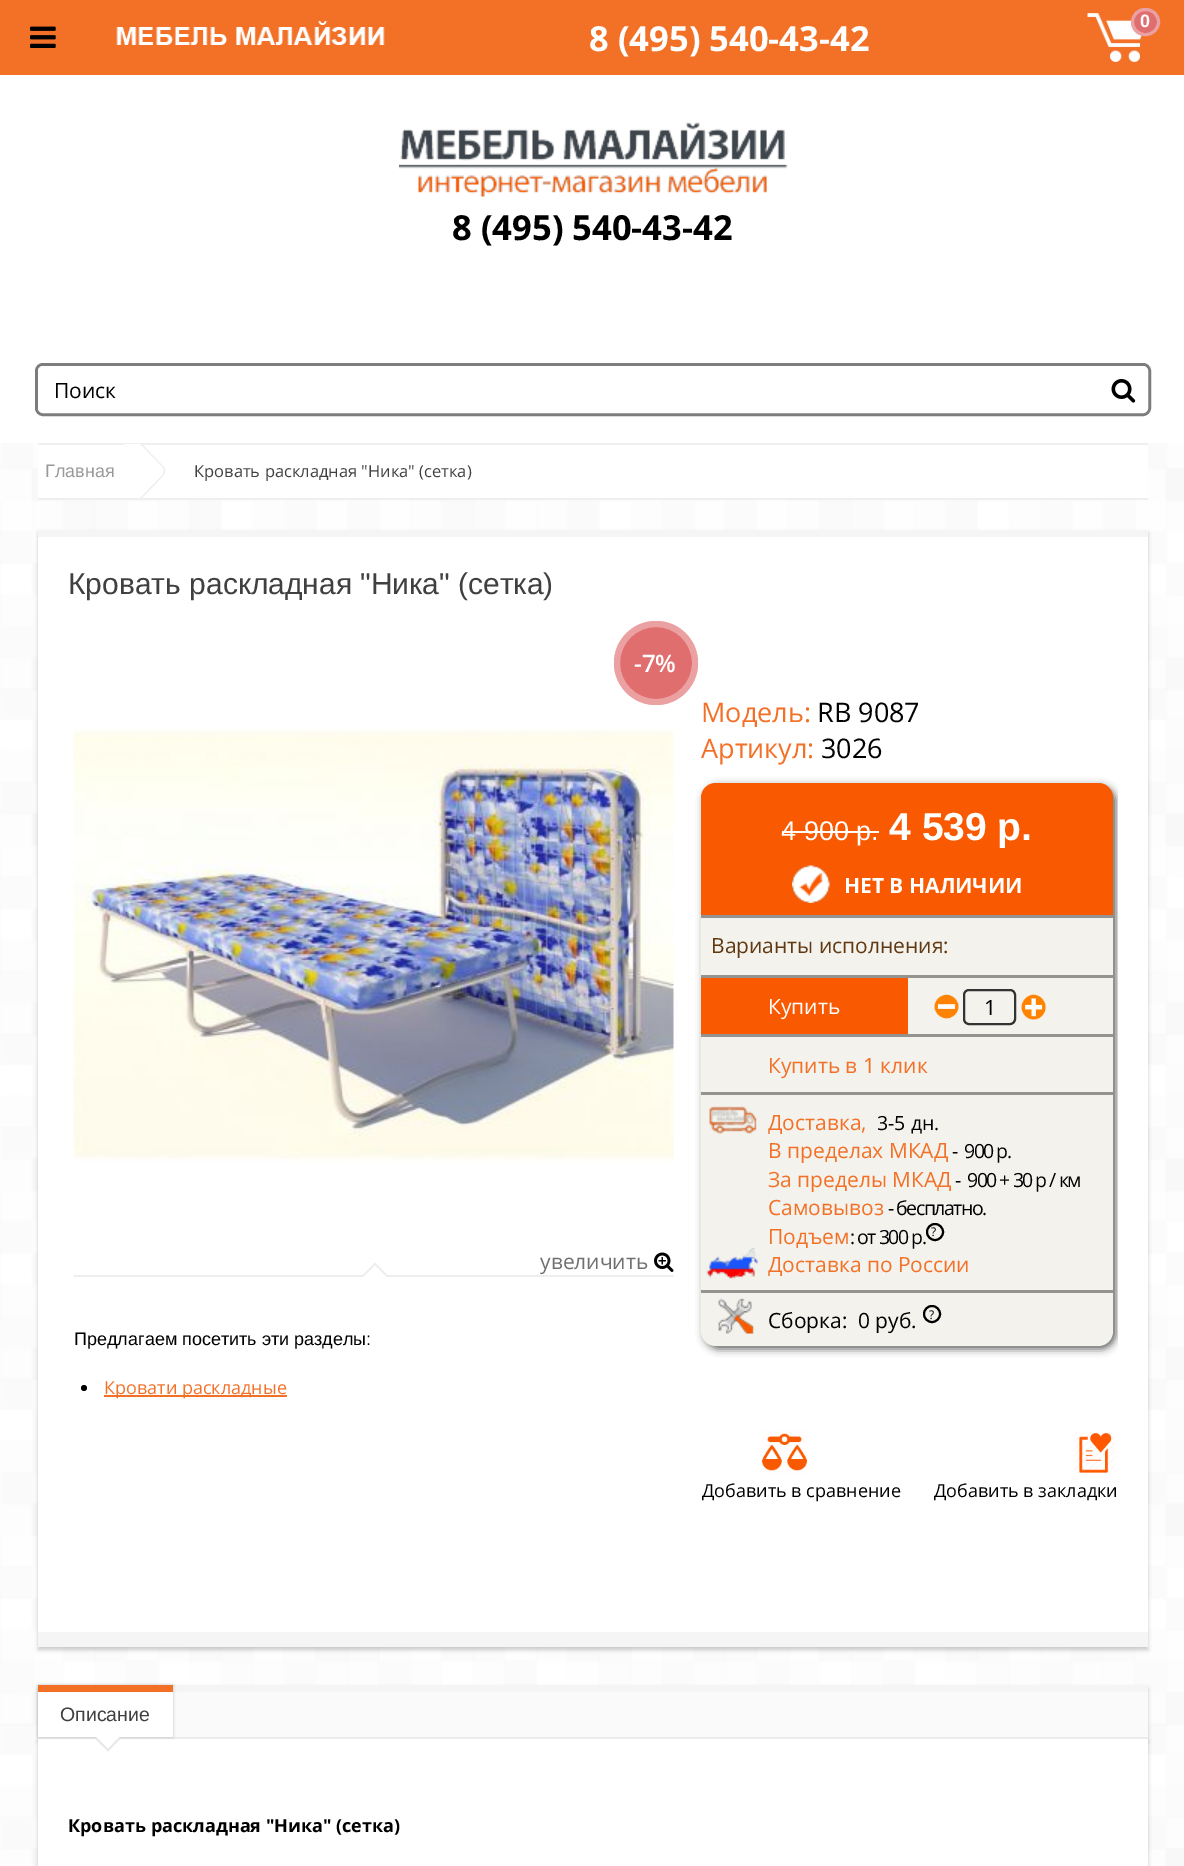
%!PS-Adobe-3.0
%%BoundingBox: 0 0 1184 1866
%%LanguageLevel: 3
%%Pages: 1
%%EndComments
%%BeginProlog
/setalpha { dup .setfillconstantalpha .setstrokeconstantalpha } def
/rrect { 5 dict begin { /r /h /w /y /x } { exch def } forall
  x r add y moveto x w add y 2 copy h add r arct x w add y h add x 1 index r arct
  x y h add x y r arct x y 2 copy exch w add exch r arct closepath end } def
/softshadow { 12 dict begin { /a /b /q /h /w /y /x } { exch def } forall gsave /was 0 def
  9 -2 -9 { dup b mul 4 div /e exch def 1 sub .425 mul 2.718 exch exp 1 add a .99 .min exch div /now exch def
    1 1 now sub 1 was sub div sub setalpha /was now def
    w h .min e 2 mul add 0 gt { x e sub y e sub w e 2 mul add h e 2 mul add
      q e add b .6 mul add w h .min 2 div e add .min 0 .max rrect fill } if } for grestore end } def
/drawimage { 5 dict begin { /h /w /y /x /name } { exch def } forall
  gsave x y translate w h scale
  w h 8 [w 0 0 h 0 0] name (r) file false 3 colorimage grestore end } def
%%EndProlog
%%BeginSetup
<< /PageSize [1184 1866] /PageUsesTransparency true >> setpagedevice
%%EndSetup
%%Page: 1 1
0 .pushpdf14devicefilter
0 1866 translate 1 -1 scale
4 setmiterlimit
1 setgray
0 0 1184 1866 rectfill
0.953 0.439 0.153 setrgbcolor
0 0 1184 75 rectfill
(images/1.raw) 1087 13 55 49 drawimage
0.882 0.431 0.431 setrgbcolor
1131 8 29 28 14 rrect fill
0.35 setalpha
1 setgray
3 setlinewidth
1132.5 9.5 26 25 12.5 rrect stroke
1 setalpha
(images/2.raw) 30 26 26 22 drawimage
(images/3.raw) 116 21 269 24 drawimage
(images/4.raw) 399 122 389 75 drawimage
0.49 setgray
36.5 364.5 1113 50 6.5 rrect stroke
1 setgray
2 setlinewidth
39 367 1108 45 4 rrect stroke
(images/5.raw) 1111 379 25 24 drawimage
(images/6.raw) 0 443 1184 1423 drawimage
38 445 1110 53 rectfill
0.937 setgray
38 443 1110 2 rectfill
38 498 1110 2 rectfill
gsave
38 444 1110 54 rectclip
0.933 setgray
newpath 140 442 moveto 163 466 lineto 166 469 166 473 163 476 curveto 140 500 lineto 137 503 132 503 129 500 curveto 106 476 lineto 103 473 103 469 106 466 curveto 129 442 lineto 132 439 137 439 140 442 curveto closepath fill
1 setgray
newpath 137 441 moveto 162 467 lineto 164 469 164 473 162 475 curveto 137 501 lineto 134 503 130 503 128 501 curveto 103 475 lineto 100 473 100 469 103 467 curveto 128 441 lineto 130 439 134 439 137 441 curveto closepath fill
grestore
0 setgray
38 533 1110 1117 0 2 0.2 softshadow
1 setgray
38 537 1110 1095 rectfill
0.961 setgray
38 530 1110 7 rectfill
38 1632 1110 15 rectfill
0.933 setgray
74 1275 600 2 rectfill
0.882 0.431 0.431 setrgbcolor
newpath 656 663 42 0 360 arc closepath fill
0.35 setalpha
1 setgray
6 setlinewidth
newpath 656 663 39 0 360 arc closepath stroke
1 setalpha
0.933 setgray
newpath 375 1262.5 moveto 387.5 1275 lineto 375 1287.5 lineto 362.5 1275 lineto closepath fill
(images/7.raw) 73 729 601 433 drawimage
(images/8.raw) 654 1252 20 20 drawimage
1 setgray
newpath 375 1265.5 moveto 387.5 1278 lineto 375 1290.5 lineto 362.5 1278 lineto closepath fill
0 setgray
newpath 84 1388 3 0 360 arc closepath fill
0.953 0.439 0.153 setrgbcolor
104 1395 183 2 rectfill
gsave
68 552 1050 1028 rectclip
0.369 setgray
704 786 412 563 15 4 1 softshadow
grestore
0.976 0.349 0 setrgbcolor
newpath 716 783 moveto 1098 783 lineto 1106.5 783 1113 789.5 1113 798 curveto 1113 918 lineto 701 918 lineto 701 798 lineto 701 789.5 707.5 783 716 783 curveto closepath fill
0.58 0.576 0.565 setrgbcolor
701 915 412 3 rectfill
1 setgray
782 831 97 2 rectfill
(images/9.raw) 792 865 38 38 drawimage
0.953 0.949 0.929 setrgbcolor
701 918 412 57 rectfill
0.58 0.576 0.565 setrgbcolor
701 975 412 3 rectfill
0.953 0.949 0.929 setrgbcolor
908 978 205 56 rectfill
0.58 0.576 0.565 setrgbcolor
701 1034 412 3 rectfill
0.976 0.349 0 setrgbcolor
701 978 207 56 rectfill
(images/10.raw) 934 994 25 25 drawimage
0.2 setgray
2 setlinewidth
964 990 51 34 5 rrect stroke
(images/11.raw) 1021 994 25 26 drawimage
0.953 0.949 0.929 setrgbcolor
701 1037 412 55 rectfill
0.58 0.576 0.565 setrgbcolor
701 1092 412 3 rectfill
0.953 0.949 0.929 setrgbcolor
701 1095 412 195 rectfill
(images/12.raw) 706 1106 52 173 drawimage
0.58 0.576 0.565 setrgbcolor
701 1290 412 3 rectfill
0 setgray
newpath 935 1232 8 0 360 arc closepath stroke
0.953 0.949 0.929 setrgbcolor
newpath 701 1293 moveto 1113 1293 lineto 1113 1331 lineto 1113 1339.5 1106.5 1346 1098 1346 curveto 716 1346 lineto 707.5 1346 701 1339.5 701 1331 curveto closepath fill
(images/13.raw) 718 1298 36 36 drawimage
0 setgray
newpath 932 1314 8 0 360 arc closepath stroke
(images/14.raw) 762 1430 45 44 drawimage
(images/15.raw) 1074 1431 42 42 drawimage
38 1688 1110 54 0 2 0.2 softshadow
0.98 setgray
173 1692 975 45 rectfill
0.961 setgray
173 1685 975 7 rectfill
0.933 setgray
38 1737 1110 2 rectfill
0 setgray
38 1742 1110 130 0 2 0.2 softshadow
1 setgray
38 1739 1110 127 rectfill
0 setgray
38 1685 135 52 0 1.5 0.2 softshadow
1 setgray
38 1692 135 45 rectfill
0.953 0.439 0.153 setrgbcolor
38 1685 135 7 rectfill
0.906 setgray
newpath 108 1726 moveto 120.5 1738.5 lineto 108 1751.5 lineto 95 1738.5 lineto closepath fill
1 setgray
newpath 108 1723 moveto 120.5 1735.5 lineto 108 1748.5 lineto 95 1735.5 lineto closepath fill
/LiberationSans-Bold [18 0 0 -18 0 0] selectfont
1140 27 moveto (0) show
/OpenSans-Bold [34.5 0 0 -34.5 0 0] selectfont
589 51 moveto (8 \(495\) 540-43-42) show
0 setgray
452 240 moveto (8 \(495\) 540-43-42) show
/OpenSans-Regular [21 0 0 -21 0 0] selectfont
54 398 moveto (Поиск) show
/LiberationSans-Regular [18 0 0 -18 0 0] selectfont
0.6 setgray
45 477 moveto (Главная) show
/OpenSans-Regular [16.5 0 0 -16.5 0 0] selectfont
0.251 setgray
194 477 moveto (Кровать раскладная "Ника" \(сетка\)) show
/LiberationSans-Regular [30 0 0 -30 0 0] selectfont
68 594 moveto (Кровать раскладная "Ника" \(сетка\)) show
/OpenSans-SemiBold [24 0 0 -24 0 0] selectfont
1 setgray
634 672 moveto (-7%) show
/OpenSans-Regular [21 0 0 -21 0 0] selectfont
0.439 setgray
540 1269 moveto (увеличить) show
/LiberationSans-Regular [18 0 0 -18 0 0] selectfont
0 setgray
74 1345 moveto (Предлагаем посетить эти разделы:) show
/OpenSans-Regular [18 0 0 -18 0 0] selectfont
0.953 0.439 0.153 setrgbcolor
104 1394 moveto (Кровати раскладные) show
/OpenSans-Regular [27 0 0 -27 0 0] selectfont
701 722 moveto (Модель:) show
0 setgray
817 722 moveto (RB 9087) show
0.953 0.439 0.153 setrgbcolor
701 758 moveto (Артикул:) show
0 setgray
821 758 moveto (3026) show
/LiberationSans-Regular [27 0 0 -27 0 0] selectfont
1 setgray
781 840 moveto (4 900 р.) show
/LiberationSans-Bold [39 0 0 -39 0 0] selectfont
889 840 moveto (4 539 р.) show
/OpenSans-Bold [21 0 0 -21 0 0] selectfont
844 893 moveto (НЕТ В НАЛИЧИИ) show
/OpenSans-Regular [21 0 0 -21 0 0] selectfont
0.376 0.224 0.075 setrgbcolor
711 953 moveto (Варианты исполнения:) show
1 setgray
768 1014 moveto (Купить) show
0 setgray
984 1015 moveto (1) show
0.953 0.439 0.153 setrgbcolor
768 1073 moveto (Купить в 1 клик) show
768 1130 moveto (Доставка,) show
/OpenSans-Regular [19.5 0 0 -19.5 0 0] selectfont
0 setgray
877 1130 moveto (3-5 дн.) show
/OpenSans-Regular [21 0 0 -21 0 0] selectfont
0.953 0.439 0.153 setrgbcolor
768 1158 moveto (В пределах МКАД) show
/OpenSans-Regular [19.5 0 0 -19.5 0 0] selectfont
0 setgray
952 1158 moveto -1.5 0 (-  900 р.) ashow
/OpenSans-Regular [21 0 0 -21 0 0] selectfont
0.953 0.439 0.153 setrgbcolor
768 1187 moveto (За пределы МКАД) show
/OpenSans-Regular [19.5 0 0 -19.5 0 0] selectfont
0 setgray
955 1187 moveto -1.5 0 (-  900 + 30 р / км) ashow
/OpenSans-Regular [21 0 0 -21 0 0] selectfont
0.953 0.439 0.153 setrgbcolor
768 1215 moveto (Самовывоз) show
/OpenSans-Regular [19.5 0 0 -19.5 0 0] selectfont
0 setgray
888 1215 moveto -1.5 0 (- бесплатно.) ashow
/OpenSans-Regular [21 0 0 -21 0 0] selectfont
0.953 0.439 0.153 setrgbcolor
768 1244 moveto (Подъем) show
/OpenSans-Regular [19.5 0 0 -19.5 0 0] selectfont
0 setgray
850 1244 moveto -1.5 0 (: от 300 р.) ashow
/OpenSans-Regular [12 0 0 -12 0 0] selectfont
931 1236 moveto (?) show
/OpenSans-Regular [21 0 0 -21 0 0] selectfont
0.953 0.439 0.153 setrgbcolor
768 1272 moveto (Доставка по России) show
0 setgray
768 1328 moveto (Сборка:) show
858 1328 moveto (0 руб.) show
/OpenSans-Regular [12 0 0 -12 0 0] selectfont
929 1319 moveto (?) show
/OpenSans-Regular [18 0 0 -18 0 0] selectfont
702 1497 moveto (Добавить в сравнение) show
934 1497 moveto (Добавить в закладки) show
/LiberationSans-Regular [19.5 0 0 -19.5 0 0] selectfont
0.251 setgray
60 1721 moveto (Описание) show
/OpenSans-Bold [18 0 0 -18 0 0] selectfont
0 setgray
68 1832 moveto (Кровать раскладная "Ника" \(сетка\)) show
.poppdf14devicefilter showpage
%%EOF
